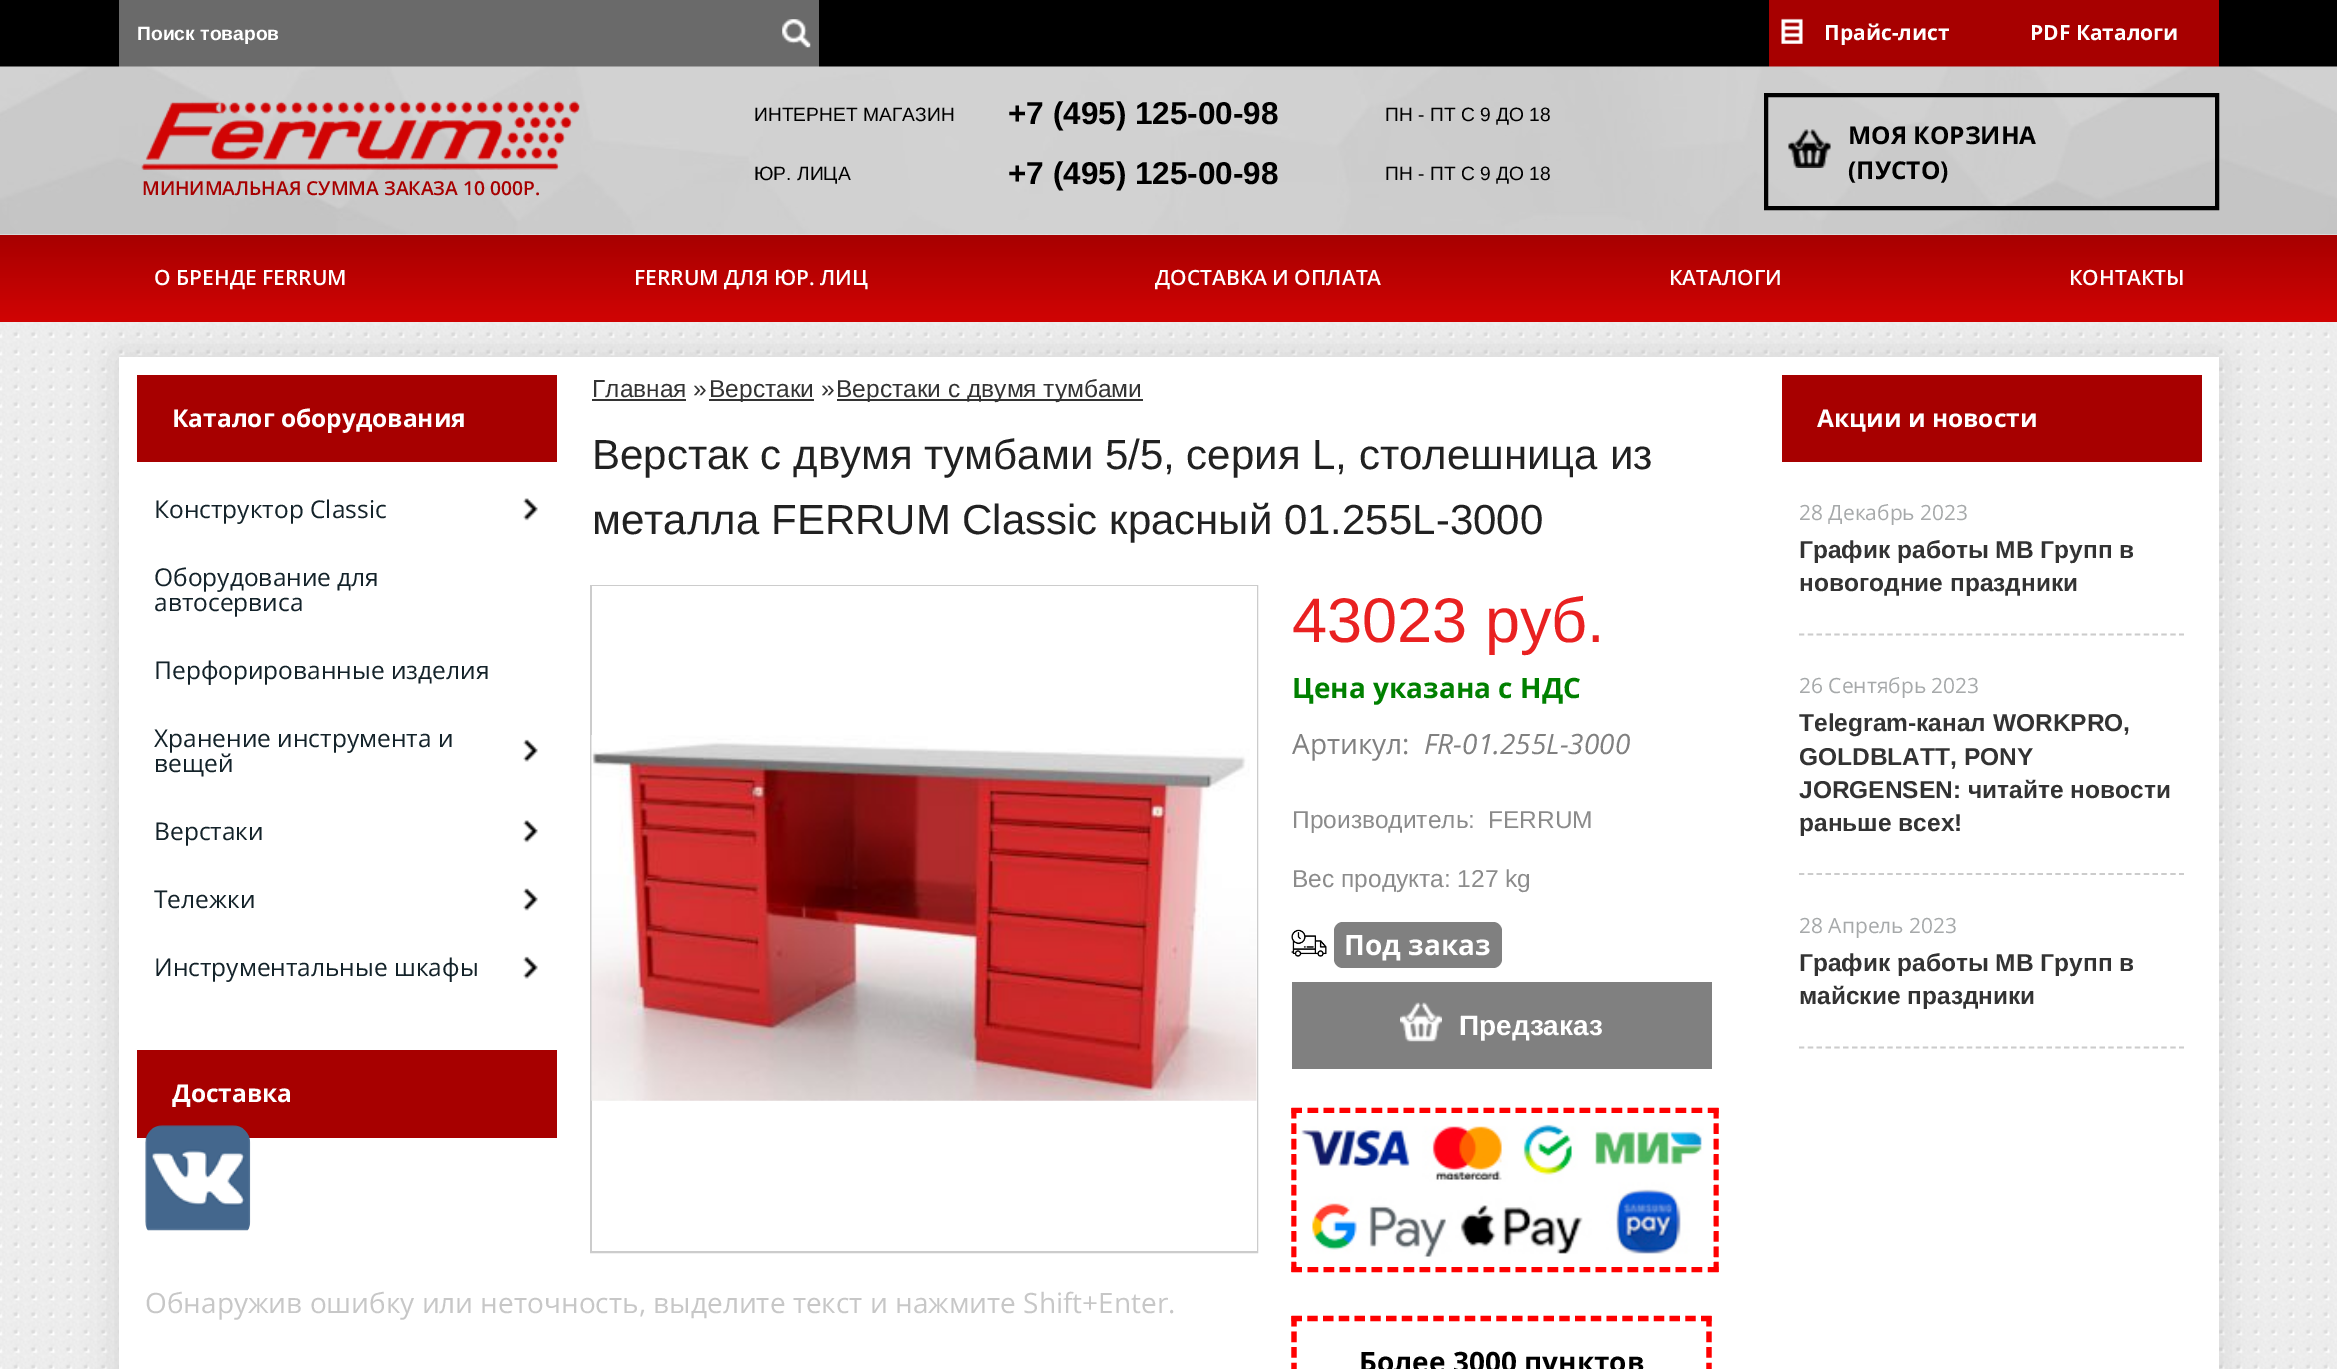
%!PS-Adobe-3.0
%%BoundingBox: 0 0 2337 1369
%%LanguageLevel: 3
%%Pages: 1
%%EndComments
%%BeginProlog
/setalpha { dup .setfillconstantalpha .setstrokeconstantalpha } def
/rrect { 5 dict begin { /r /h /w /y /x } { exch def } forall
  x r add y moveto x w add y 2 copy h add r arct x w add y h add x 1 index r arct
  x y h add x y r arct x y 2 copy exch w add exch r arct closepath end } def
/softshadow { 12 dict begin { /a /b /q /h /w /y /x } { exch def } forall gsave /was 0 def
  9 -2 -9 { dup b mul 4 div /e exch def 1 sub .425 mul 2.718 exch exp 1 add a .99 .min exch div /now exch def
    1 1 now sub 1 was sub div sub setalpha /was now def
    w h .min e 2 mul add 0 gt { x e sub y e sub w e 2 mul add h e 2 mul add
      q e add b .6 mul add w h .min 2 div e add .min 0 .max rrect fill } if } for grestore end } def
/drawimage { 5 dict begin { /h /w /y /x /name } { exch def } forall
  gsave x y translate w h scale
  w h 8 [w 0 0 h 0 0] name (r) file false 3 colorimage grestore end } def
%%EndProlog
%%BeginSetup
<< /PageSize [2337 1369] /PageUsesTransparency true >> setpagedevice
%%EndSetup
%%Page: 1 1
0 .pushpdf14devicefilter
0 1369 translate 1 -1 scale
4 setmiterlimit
1 setgray
0 0 2337 1369 rectfill
(images/1.raw) 0 234 2337 1135 drawimage
0 setgray
0 0 2337 67 rectfill
0.416 setgray
119 0 700 67 rectfill
(images/2.raw) 782 19 29 29 drawimage
0.655 0 0 setrgbcolor
1769 0 450 67 rectfill
(images/3.raw) 1781 18 22 26 drawimage
(images/4.raw) 0 66 2337 169 drawimage
0 setgray
4 setlinewidth
1766 95 451 113 rectstroke
(images/5.raw) 1788 129 43 39 drawimage
(images/6.raw) 141 101 439 69 drawimage
gsave newpath 0 235 moveto 2337 235 lineto 2337 322 lineto 0 322 lineto closepath clip newpath
<< /ShadingType 2 /ColorSpace /DeviceRGB /Coords [1169 322 1169 235] /Extend [true true] /Function << /FunctionType 2 /Domain [0 1] /C0 [0.82 0.016 0.016] /C1 [0.655 0 0] /N 1 >> >> shfill grestore
119 357 2100 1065 0 17.5 0.1 softshadow
1 setgray
119 357 2100 1012 rectfill
0.655 0 0 setrgbcolor
137 375 420 87 rectfill
(images/7.raw) 523 498 15 23 drawimage
(images/8.raw) 523 739 15 23 drawimage
(images/7.raw) 523 820 15 23 drawimage
(images/9.raw) 523 888 15 23 drawimage
(images/8.raw) 523 956 15 23 drawimage
137 1050 420 88 rectfill
0.2 setgray
592 399 94 2 rectfill
709 399 105 2 rectfill
837 399 306 2 rectfill
0.8 setgray
2 setlinewidth
591 586 666 666 rectstroke
1 setgray
592 586 665 665 rectfill
(images/10.raw) 591 735 666 366 drawimage
(images/11.raw) 1291 929 36 28 drawimage
0.502 setgray
1334 922 168 46 9 rrect fill
1292 982 420 87 rectfill
(images/12.raw) 1400 1002 42 40 drawimage
1 0 0 setrgbcolor
5.2 setlinewidth
[10.5 5.51] 0 setdash
newpath 1291.5 1110.5 moveto 1718.5 1110.5 lineto stroke
[10.5 4.9] 0 setdash
newpath 1716 1108 moveto 1716 1272 lineto stroke
[10.5 5.51] 0 setdash
newpath 1291.5 1269.5 moveto 1718.5 1269.5 lineto stroke
[10.5 4.9] 0 setdash
newpath 1294 1108 moveto 1294 1272 lineto stroke
(images/13.raw) 1296 1113 418 154 drawimage
[10.5 5.25] 0 setdash
newpath 1291.5 1318.5 moveto 1711.5 1318.5 lineto stroke
[10.5 5.11] 0 setdash
newpath 1709 1316 moveto 1709 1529.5 lineto stroke
newpath 1294 1316 moveto 1294 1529.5 lineto stroke
0.655 0 0 setrgbcolor
1782 375 420 87 rectfill
0.8 setgray
1.8 setlinewidth
[5.25 3.59] 0 setdash
newpath 1799 634.5 moveto 2184 634.5 lineto stroke
newpath 1799 874 moveto 2184 874 lineto stroke
newpath 1799 1047.5 moveto 2184 1047.5 lineto stroke
(images/14.raw) 145 1125 106 106 drawimage
/LiberationSans-Bold [19.25 0 0 -19.25 0 0] selectfont
1 setgray
137 40 moveto (Поиск товаров) show
/OpenSans-Bold [21 0 0 -21 0 0] selectfont
1824 40 moveto (Прайс-лист) show
2030 40 moveto (PDF Каталоги) show
/LiberationSans-Regular [19.25 0 0 -19.25 0 0] selectfont
0 setgray
754 121 moveto (ИНТЕРНЕТ МАГАЗИН) show
/LiberationSans-Bold [31.5 0 0 -31.5 0 0] selectfont
1008 124 moveto (+7 \(495\) 125-00-98) show
/LiberationSans-Regular [19.25 0 0 -19.25 0 0] selectfont
1385 121 moveto (ПН - ПТ С 9 ДО 18) show
754 180 moveto (ЮР. ЛИЦА) show
/LiberationSans-Bold [31.5 0 0 -31.5 0 0] selectfont
1008 184 moveto (+7 \(495\) 125-00-98) show
/LiberationSans-Regular [19.25 0 0 -19.25 0 0] selectfont
1385 180 moveto (ПН - ПТ С 9 ДО 18) show
/OpenSans-Bold [24.5 0 0 -24.5 0 0] selectfont
1848 144 moveto (МОЯ КОРЗИНА) show
1848 179 moveto (\(ПУСТО\)) show
/OpenSans-SemiBold [19.25 0 0 -19.25 0 0] selectfont
0.655 0 0 setrgbcolor
142 195 moveto (МИНИМАЛЬНАЯ СУММА ЗАКАЗА 10 000Р.) show
/OpenSans-SemiBold [21 0 0 -21 0 0] selectfont
1 setgray
154 285 moveto (О БРЕНДЕ FERRUM) show
634 285 moveto (FERRUM ДЛЯ ЮР. ЛИЦ) show
1155 285 moveto (ДОСТАВКА И ОПЛАТА) show
1669 285 moveto (КАТАЛОГИ) show
2069 285 moveto (КОНТАКТЫ) show
/OpenSans-Bold [24.5 0 0 -24.5 0 0] selectfont
172 427 moveto (Каталог оборудования) show
/OpenSans-Regular [24.5 0 0 -24.5 0 0] selectfont
0.075 0.133 0.161 setrgbcolor
154 518 moveto (Конструктор Classic) show
154 586 moveto (Оборудование для) show
154 611 moveto (автосервиса) show
154 679 moveto (Перфорированные изделия) show
154 747 moveto (Хранение инструмента и) show
154 772 moveto (вещей) show
154 840 moveto (Верстаки) show
154 908 moveto (Тележки) show
154 976 moveto (Инструментальные шкафы) show
/OpenSans-Bold [24.5 0 0 -24.5 0 0] selectfont
1 setgray
172 1102 moveto (Доставка) show
/LiberationSans-Regular [24.5 0 0 -24.5 0 0] selectfont
0.2 setgray
592 397 moveto (Главная) show
693 397 moveto (») show
709 397 moveto (Верстаки) show
821 397 moveto (») show
836 397 moveto (Верстаки с двумя тумбами) show
/LiberationSans-Regular [42 0 0 -42 0 0] selectfont
0.129 setgray
592 469 moveto (Верстак с двумя тумбами 5/5, серия L, столешница из) show
592 534 moveto (металла FERRUM Classic красный 01.255L-3000) show
/LiberationSans-Regular [63 0 0 -63 0 0] selectfont
0.914 0.129 0.129 setrgbcolor
1292 642 moveto (43023 руб.) show
/OpenSans-Bold [28 0 0 -28 0 0] selectfont
0 0.502 0 setrgbcolor
1292 698 moveto (Цена указана с НДС) show
/OpenSans-Regular [28 0 0 -28 0 0] selectfont
0.502 setgray
1292 754 moveto (Артикул:) show
/OpenSans-Italic [28 0 0 -28 0 0] selectfont
1424 754 moveto (FR-01.255L-3000) show
/LiberationSans-Regular [24.5 0 0 -24.5 0 0] selectfont
0.545 setgray
1292 828 moveto (Производитель:) show
1488 828 moveto (FERRUM) show
1292 887 moveto (Вес продукта: 127 kg) show
/OpenSans-Bold [28 0 0 -28 0 0] selectfont
1 setgray
1344 955 moveto (Под заказ) show
/LiberationSans-Bold [28 0 0 -28 0 0] selectfont
1459 1035 moveto (Предзаказ) show
/OpenSans-Bold [28 0 0 -28 0 0] selectfont
0 setgray
1359 1372 moveto (Более 3000 пунктов) show
/OpenSans-Bold [24.5 0 0 -24.5 0 0] selectfont
1 setgray
1817 427 moveto (Акции и новости) show
/OpenSans-Regular [21 0 0 -21 0 0] selectfont
0.651 0.663 0.667 setrgbcolor
1799 520 moveto (28 Декабрь 2023) show
/LiberationSans-Bold [24.5 0 0 -24.5 0 0] selectfont
0.2 setgray
1799 558 moveto (График работы МВ Групп в) show
1799 591 moveto (новогодние праздники) show
/OpenSans-Regular [21 0 0 -21 0 0] selectfont
0.651 0.663 0.667 setrgbcolor
1799 693 moveto (26 Сентябрь 2023) show
/LiberationSans-Bold [24.5 0 0 -24.5 0 0] selectfont
0.2 setgray
1799 731 moveto (Telegram-канал WORKPRO,) show
1799 765 moveto (GOLDBLATT, PONY) show
1799 798 moveto (JORGENSEN: читайте новости) show
1799 831 moveto (раньше всех!) show
/OpenSans-Regular [21 0 0 -21 0 0] selectfont
0.651 0.663 0.667 setrgbcolor
1799 933 moveto (28 Апрель 2023) show
/LiberationSans-Bold [24.5 0 0 -24.5 0 0] selectfont
0.2 setgray
1799 971 moveto (График работы МВ Групп в) show
1799 1004 moveto (майские праздники) show
/OpenSans-Regular [28 0 0 -28 0 0] selectfont
0.78 setgray
145 1313 moveto (Обнаружив ошибку или неточность, выделите текст и нажмите Shift+Enter.) show
.poppdf14devicefilter showpage
%%EOF
